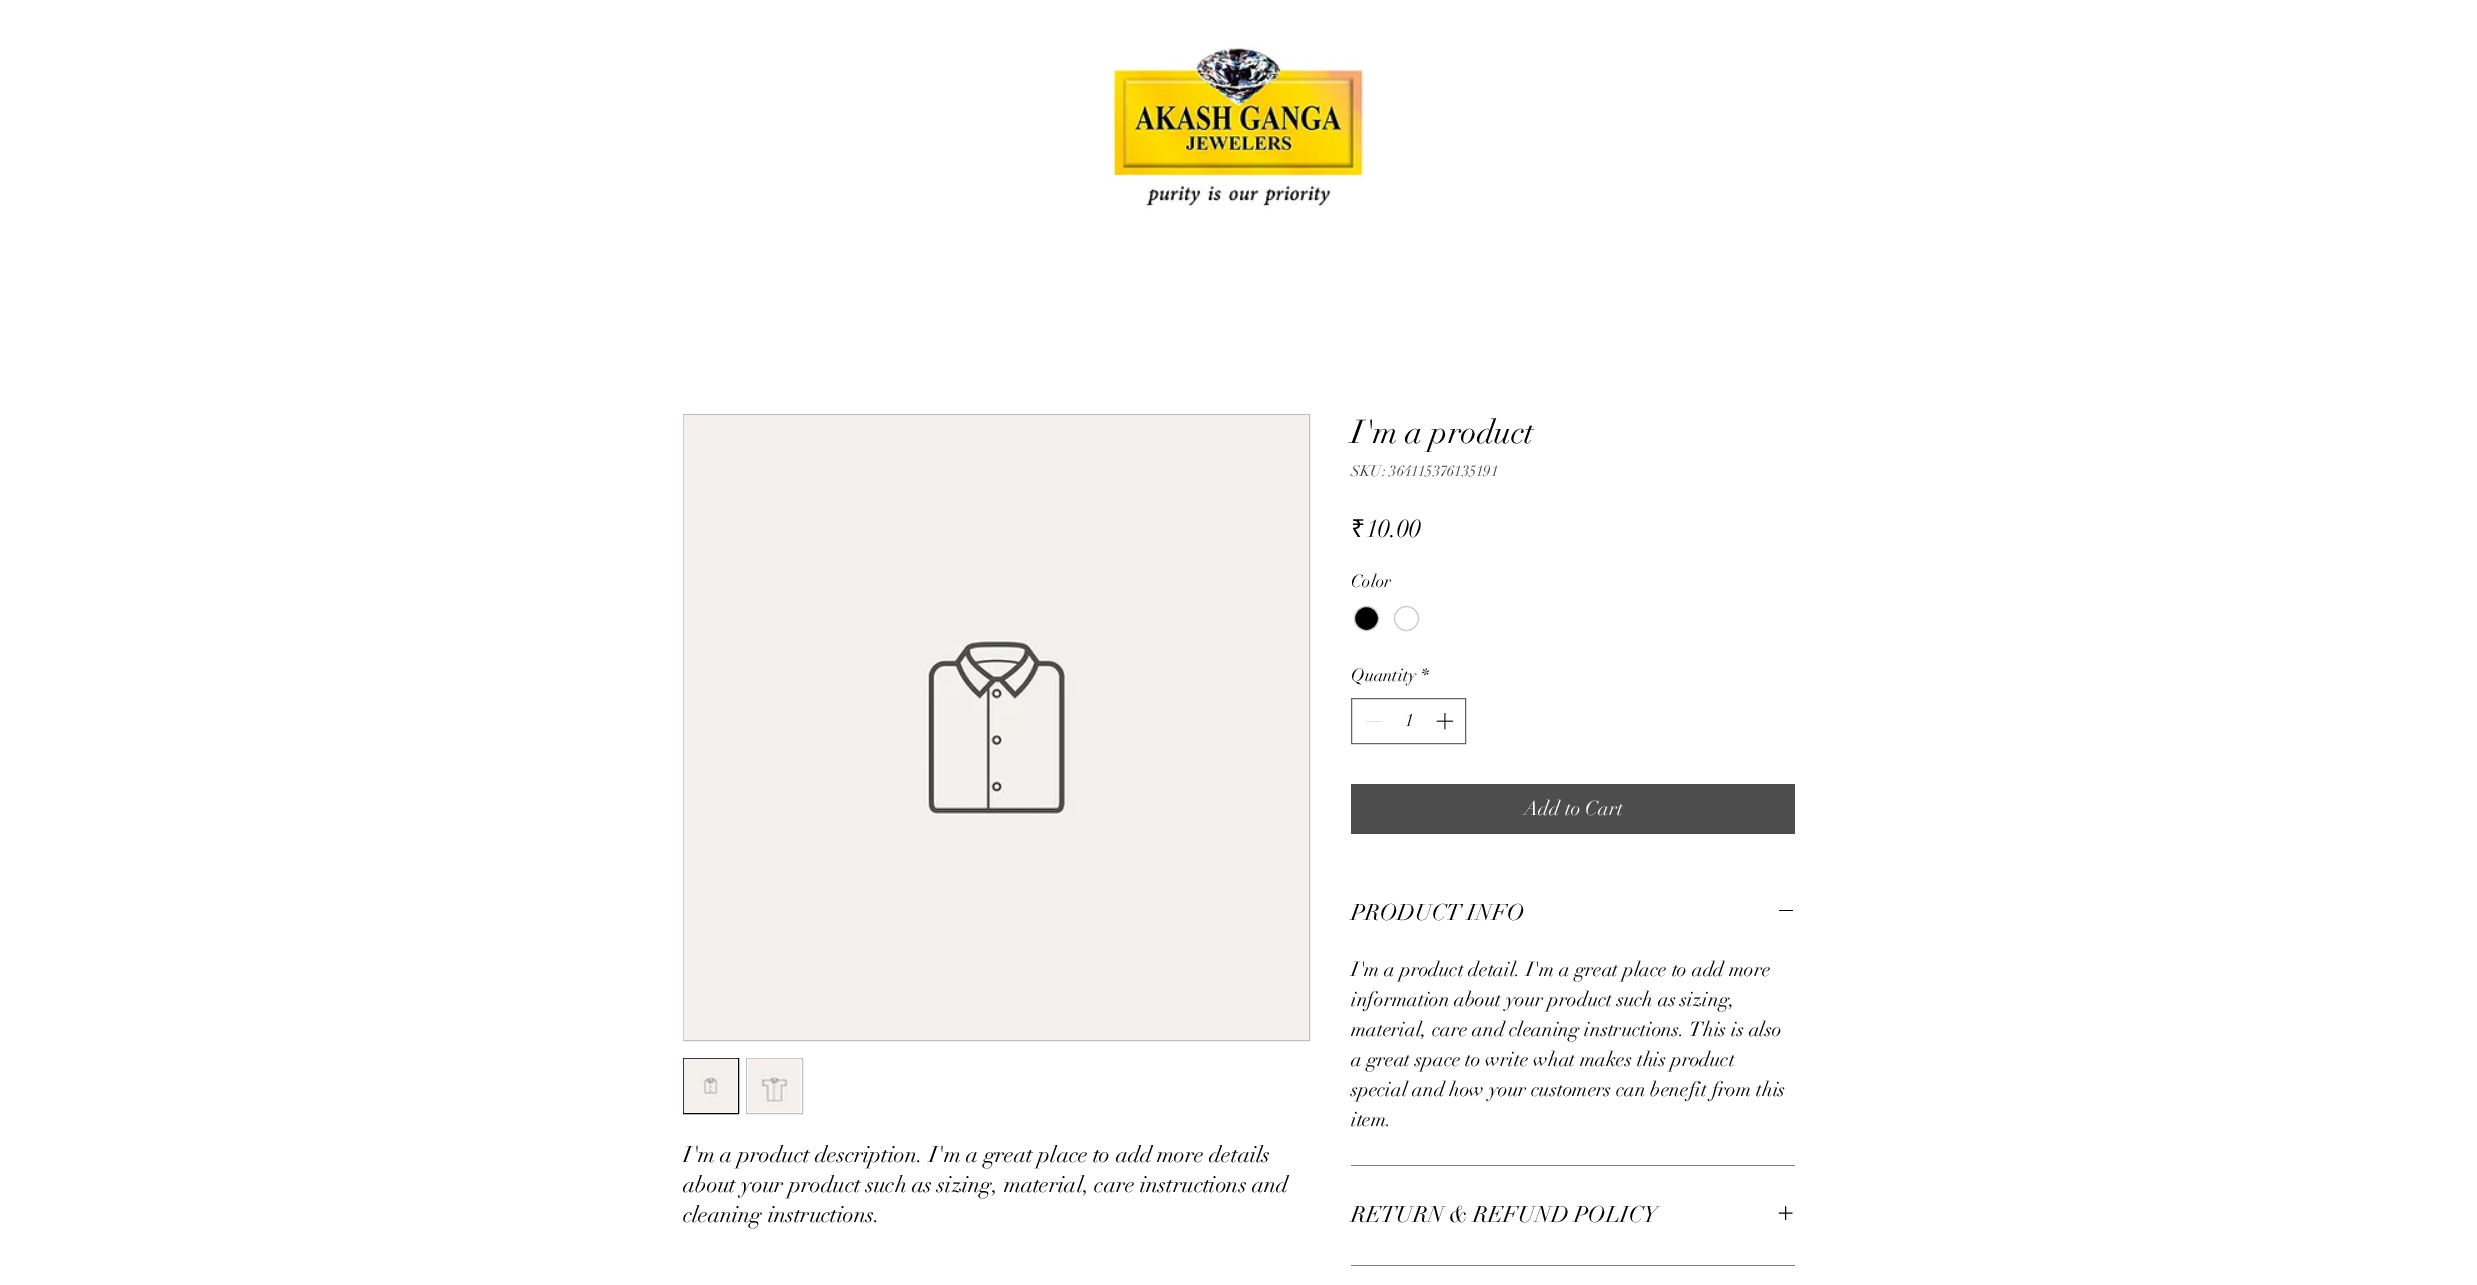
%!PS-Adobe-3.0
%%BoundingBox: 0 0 2477 1285
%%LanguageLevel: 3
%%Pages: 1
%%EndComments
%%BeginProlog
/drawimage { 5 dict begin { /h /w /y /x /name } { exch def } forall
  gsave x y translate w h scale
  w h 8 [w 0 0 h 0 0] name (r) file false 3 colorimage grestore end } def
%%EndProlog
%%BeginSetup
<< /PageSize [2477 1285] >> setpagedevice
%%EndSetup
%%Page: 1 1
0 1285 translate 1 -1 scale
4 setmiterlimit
1 setgray
0 0 2477 1285 rectfill
(images/1.raw) 1112 45 253 164 drawimage
0.749 setgray
683.5 414.5 626 626 rectstroke
(images/2.raw) 683 415 626 625 drawimage
0 setgray
683.5 1058.5 55 55 rectstroke
(images/3.raw) 683 1058 55 55 drawimage
0.749 setgray
746.5 1058.5 56 55 rectstroke
(images/4.raw) 747 1058 54 55 drawimage
0 setgray
newpath 1366.5 618.5 12 0 360 arc closepath gsave fill grestore
0.788 setgray
stroke
newpath 1406.5 618.5 12 0 360 arc closepath stroke
0.4 setgray
1351.5 698.5 114 45 rectstroke
0.89 setgray
1366 721 16 1 rectfill
(images/5.raw) 1436 713 18 17 drawimage
0.302 setgray
1351 784 444 50 rectfill
0.502 setgray
1351 1165 444 1 rectfill
0 setgray
1779 910 14 1 rectfill
0.502 setgray
1351 1265 444 1 rectfill
(images/6.raw) 1778 1206 15 14 drawimage
gsave
683 1139 625 90 rectclip
/didot-Regular [22.5 0 0 -22.5 0 0] selectfont
0 setgray
683 1162 moveto (I'm a product description. I'm a great place to add more details) show
683 1192 moveto (about your product such as sizing, material, care instructions and) show
683 1222 moveto (cleaning instructions.) show
grestore
/didot-Regular [32.5 0 0 -32.5 0 0] selectfont
0 setgray
1351 443 moveto (I'm a product) show
/didot-Regular [15 0 0 -15 0 0] selectfont
0.251 setgray
1351 476 moveto (SKU: 364115376135191) show
/NotoSans-Regular [25 0 0 -25 0 0] selectfont
0 setgray
1351 537 moveto (₹) show
/didot-Regular [25 0 0 -25 0 0] selectfont
1366 537 moveto (10.00) show
/didot-Regular [17.5 0 0 -17.5 0 0] selectfont
1351 587 moveto (Color) show
1351 681 moveto (Quantity) show
1421 681 moveto (*) show
1405 726 moveto (1) show
/didot-Regular [20 0 0 -20 0 0] selectfont
1 setgray
1524 815 moveto (Add to Cart) show
/didot-Regular [22.5 0 0 -22.5 0 0] selectfont
0 setgray
1351 920 moveto (PRODUCT INFO) show
/didot-Regular [20 0 0 -20 0 0] selectfont
1351 976 moveto (I'm a product detail. I'm a great place to add more) show
1351 1006 moveto (information about your product such as sizing,) show
1351 1036 moveto (material, care and cleaning instructions. This is also) show
1351 1066 moveto (a great space to write what makes this product) show
1351 1096 moveto (special and how your customers can benefit from this) show
1351 1126 moveto (item.) show
/didot-Regular [22.5 0 0 -22.5 0 0] selectfont
1351 1222 moveto (RETURN & REFUND POLICY) show
showpage
%%EOF
